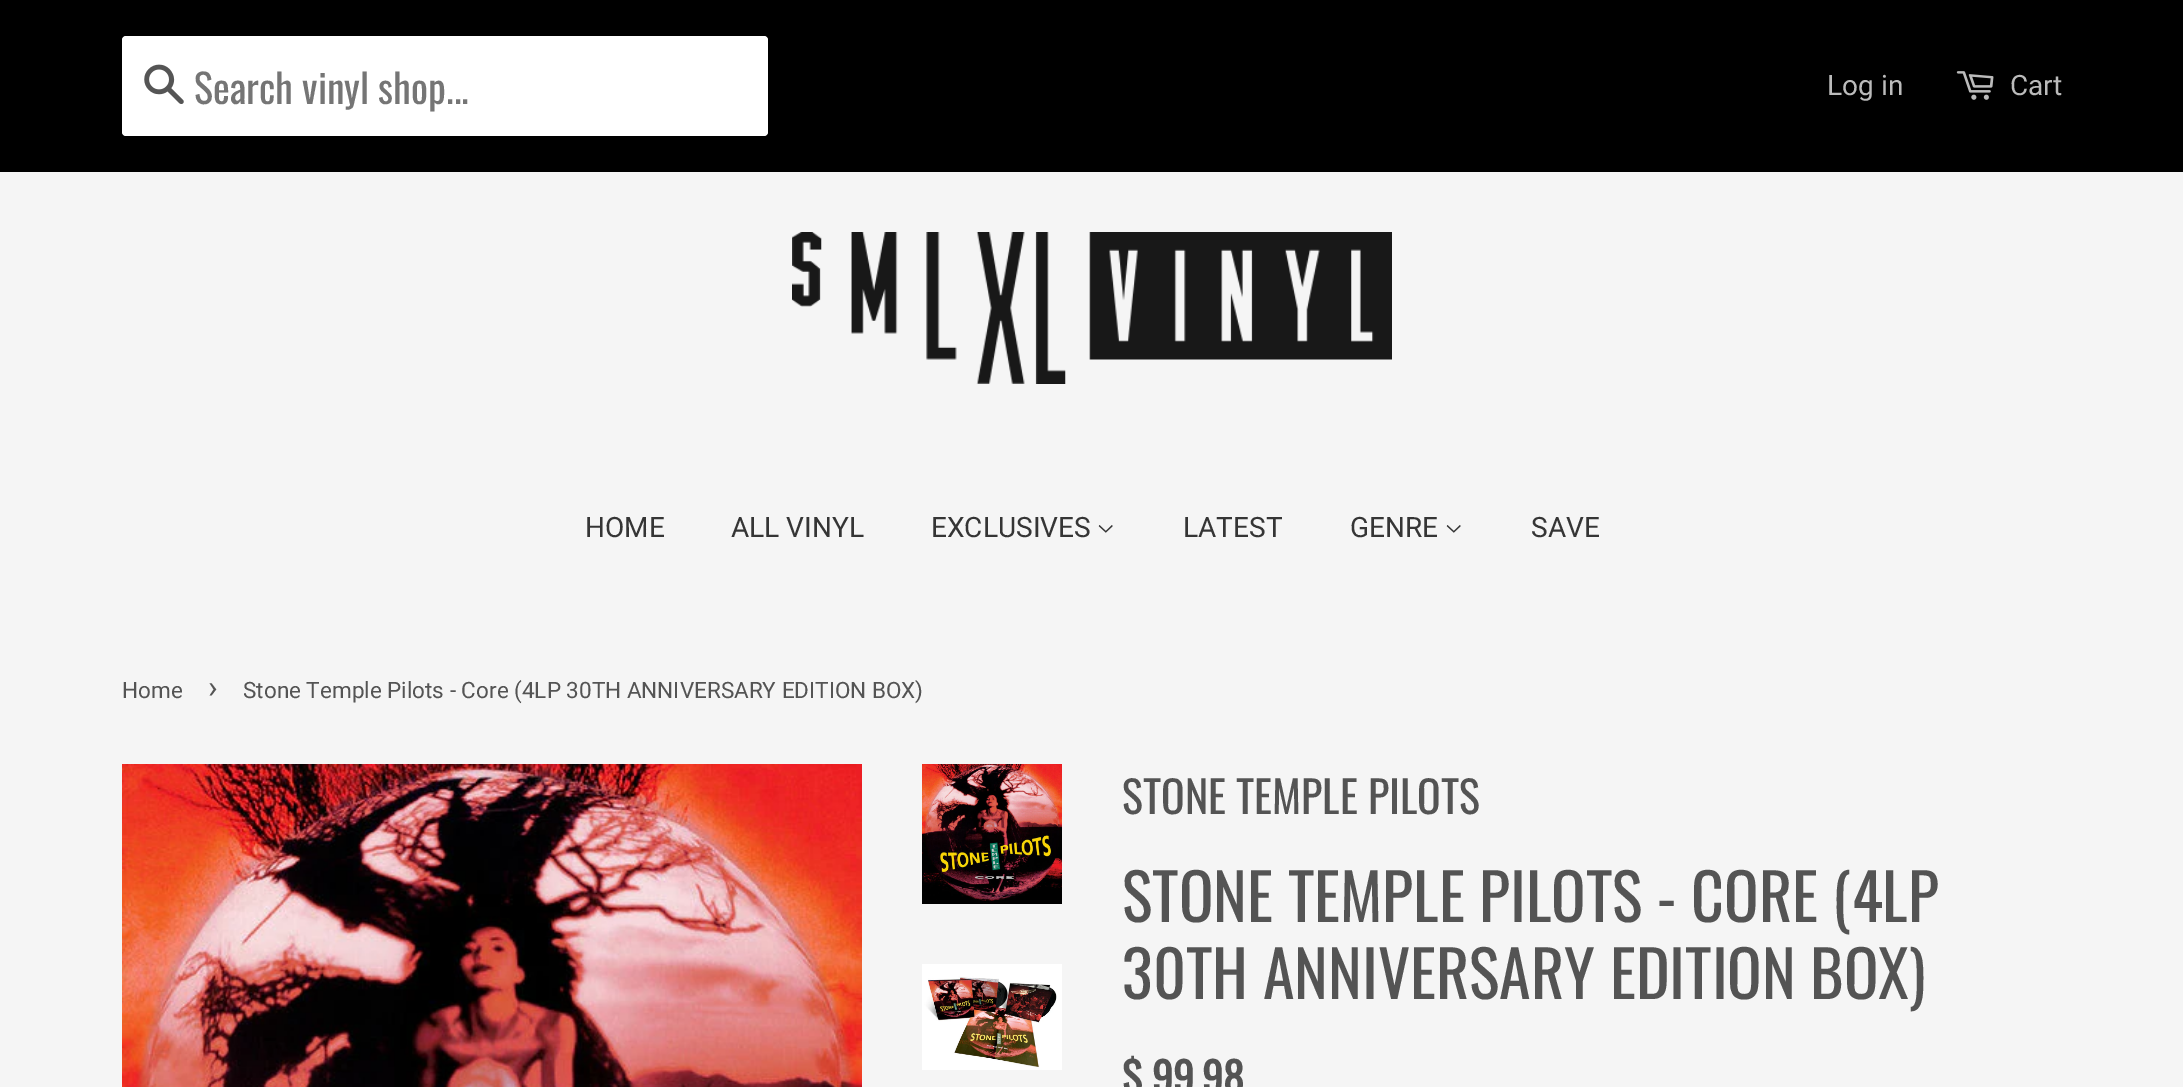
%!PS-Adobe-3.0
%%BoundingBox: 0 0 2183 1087
%%LanguageLevel: 3
%%Pages: 1
%%EndComments
%%BeginProlog
/rrect { 5 dict begin { /r /h /w /y /x } { exch def } forall
  x r add y moveto x w add y 2 copy h add r arct x w add y h add x 1 index r arct
  x y h add x y r arct x y 2 copy exch w add exch r arct closepath end } def
/drawimage { 5 dict begin { /h /w /y /x /name } { exch def } forall
  gsave x y translate w h scale
  w h 8 [w 0 0 h 0 0] name (r) file false 3 colorimage grestore end } def
%%EndProlog
%%BeginSetup
<< /PageSize [2183 1087] >> setpagedevice
%%EndSetup
%%Page: 1 1
0 1087 translate 1 -1 scale
4 setmiterlimit
0.961 setgray
0 0 2183 1087 rectfill
0 setgray
0 0 2183 172 rectfill
1 setgray
122 36 646 100 4 rrect fill
(images/1.raw) 144 64 40 40 drawimage
(images/2.raw) 1956 71 38 29 drawimage
(images/3.raw) 792 232 600 152 drawimage
(images/4.raw) 1098 525 15 8 drawimage
(images/4.raw) 1446 525 15 8 drawimage
(images/5.raw) 122 764 740 323 drawimage
(images/6.raw) 922 764 140 140 drawimage
(images/7.raw) 922 964 140 106 drawimage
/Oswald-Regular [40 0 0 -40 0 0] selectfont
0.459 setgray
194 104 moveto (Search vinyl shop...) show
/Roboto-Regular [28 0 0 -28 0 0] selectfont
0.733 setgray
1827 95 moveto (Log in) show
2010 95 moveto (Cart) show
0.208 setgray
585 537 moveto (HOME) show
731 537 moveto (ALL VINYL) show
931 537 moveto (EXCLUSIVES) show
1183 537 moveto (LATEST) show
1350 537 moveto (GENRE) show
1531 537 moveto (SAVE) show
/Roboto-Regular [22.5 0 0 -22.5 0 0] selectfont
0.329 setgray
122 698 moveto (Home) show
/Roboto-Regular [32 0 0 -32 0 0] selectfont
208 698 moveto (›) show
/Roboto-Regular [22.5 0 0 -22.5 0 0] selectfont
243 698 moveto (Stone Temple Pilots - Core \(4LP 30TH ANNIVERSARY EDITION BOX\)) show
/Oswald-Regular [44 0 0 -44 0 0] selectfont
1122 814 moveto (STONE TEMPLE PILOTS) show
/Oswald-Regular [64 0 0 -64 0 0] selectfont
1122 922 moveto (STONE TEMPLE PILOTS - CORE \(4LP) show
1122 999 moveto (30TH ANNIVERSARY EDITION BOX\)) show
/Oswald-Bold [42 0 0 -42 0 0] selectfont
1122 1094 moveto ($ 99.98) show
showpage
%%EOF
